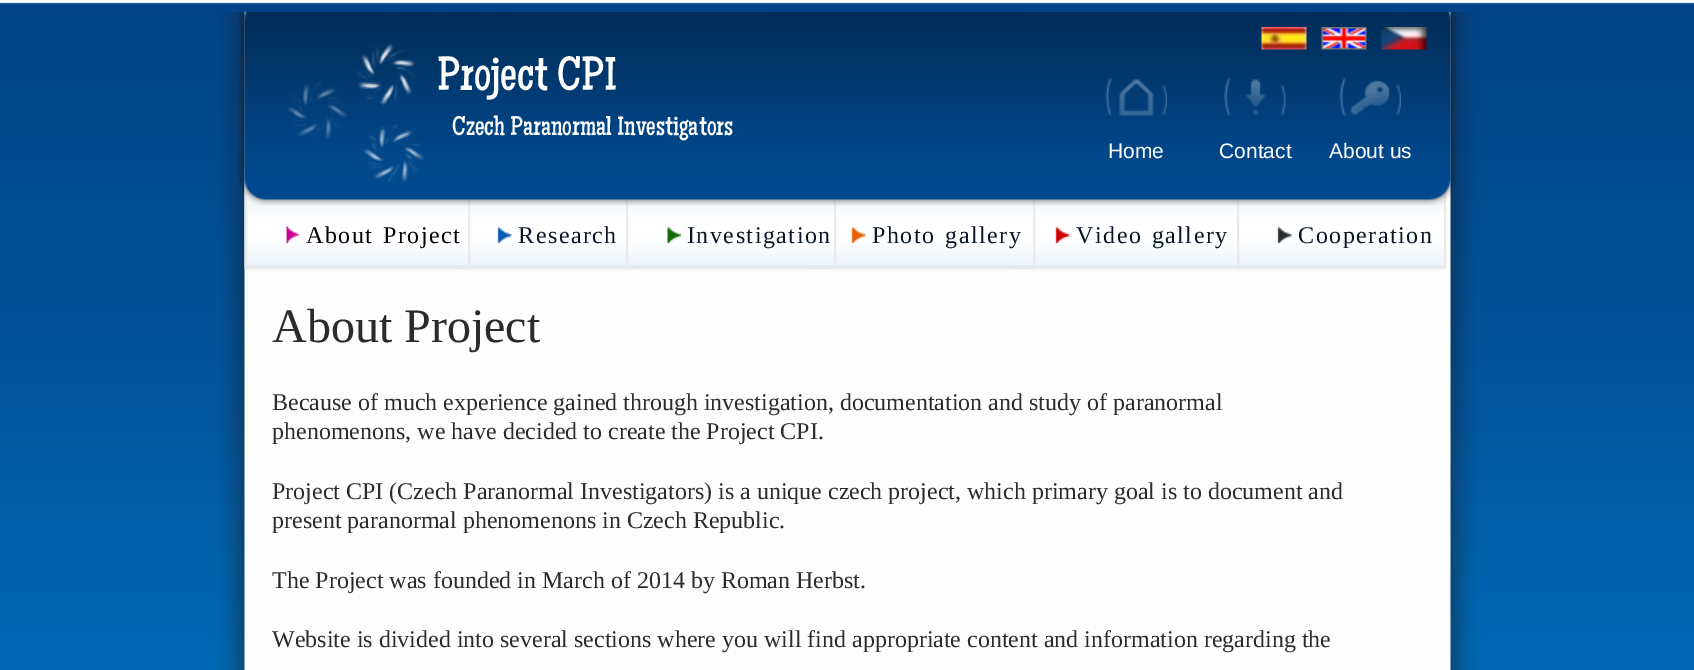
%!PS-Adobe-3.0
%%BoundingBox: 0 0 1694 670
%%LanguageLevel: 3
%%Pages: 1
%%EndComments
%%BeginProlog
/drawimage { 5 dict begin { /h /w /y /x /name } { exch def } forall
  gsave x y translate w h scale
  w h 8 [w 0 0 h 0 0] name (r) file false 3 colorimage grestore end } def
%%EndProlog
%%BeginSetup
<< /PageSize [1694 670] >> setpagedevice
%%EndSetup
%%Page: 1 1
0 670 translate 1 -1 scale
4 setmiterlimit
1 setgray
0 0 1694 670 rectfill
(images/1.raw) 0 0 1694 670 drawimage
(images/2.raw) 219 12 1259 658 drawimage
(images/13.raw) 470 199 156 68 drawimage
0.914 setgray
2 setlinewidth
457 169 178 99 rectstroke
(images/11.raw) 244 168 224 101 drawimage
246 169 223 99 rectstroke
(images/21.raw) 1239 192 205 75 drawimage
1237 169 208 99 rectstroke
(images/19.raw) 1035 199 202 68 drawimage
1015 169 223 99 rectstroke
(images/17.raw) 836 199 197 68 drawimage
811 169 223 99 rectstroke
(images/15.raw) 625 199 209 70 drawimage
627 169 208 99 rectstroke
(images/3.raw) 238 12 1219 194 drawimage
(images/4.raw) 1261 27 46 23 drawimage
(images/5.raw) 1321 27 46 23 drawimage
(images/6.raw) 1381 27 46 23 drawimage
(images/7.raw) 287 43 137 140 drawimage
(images/8.raw) 1105 78 62 38 drawimage
(images/9.raw) 1224 78 62 38 drawimage
(images/10.raw) 1339 78 62 38 drawimage
(images/12.raw) 286 226 14 17 drawimage
(images/14.raw) 497 226 15 17 drawimage
(images/16.raw) 667 226 14 17 drawimage
(images/18.raw) 851 226 15 17 drawimage
(images/20.raw) 1055 226 15 17 drawimage
(images/22.raw) 1277 226 15 17 drawimage
/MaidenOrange-Regular [48 0 0 -48 0 0] selectfont
1 setgray
437 90 moveto (Project CPI) show
/MaidenOrange-Regular [27 0 0 -27 0 0] selectfont
452 135 moveto (Czech Paranormal Investigators) show
/LiberationSans-Regular [21 0 0 -21 0 0] selectfont
1108 158 moveto (Home) show
1219 158 moveto (Contact) show
1329 158 moveto (About us) show
/LiberationSerif-Regular [24 0 0 -24 0 0] selectfont
0 setgray
306 243 moveto 2 0 32 1.5 0 (About Project) awidthshow
0.035 0.082 0.153 setrgbcolor
518 243 moveto 1.5 0 (Research) ashow
687 243 moveto 1.5 0 (Investigation) ashow
872 243 moveto 2 0 32 1.5 0 (Photo gallery) awidthshow
1076 243 moveto 2 0 32 1.5 0 (Video gallery) awidthshow
1298 243 moveto 1.5 0 (Cooperation) ashow
/LiberationSerif-Regular [48 0 0 -48 0 0] selectfont
0.169 setgray
272 342 moveto (About Project) show
/LiberationSerif-Regular [24 0 0 -24 0 0] selectfont
272 410 moveto (Because of much experience gained through investigation, documentation and study of paranormal) show
272 439 moveto (phenomenons, we have decided to create the Project CPI.) show
272 499 moveto (Project CPI \(Czech Paranormal Investigators\) is a unique czech project, which primary goal is to document and) show
272 528 moveto (present paranormal phenomenons in Czech Republic.) show
272 588 moveto (The Project was founded in March of 2014 by Roman Herbst.) show
272 647 moveto (Website is divided into several sections where you will find appropriate content and information regarding the) show
showpage
%%EOF
